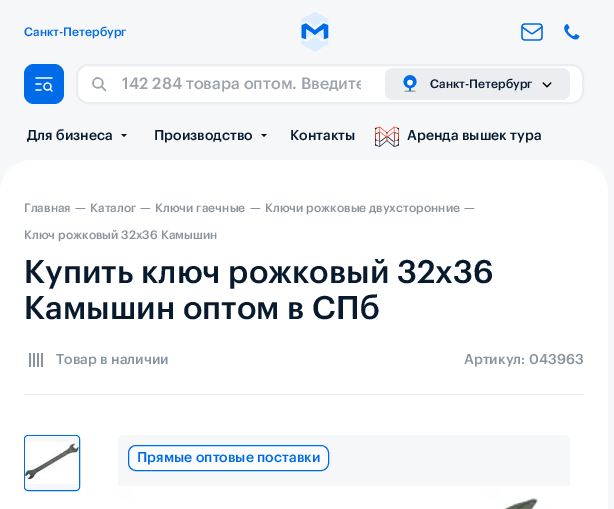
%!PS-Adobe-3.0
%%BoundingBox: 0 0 614 509
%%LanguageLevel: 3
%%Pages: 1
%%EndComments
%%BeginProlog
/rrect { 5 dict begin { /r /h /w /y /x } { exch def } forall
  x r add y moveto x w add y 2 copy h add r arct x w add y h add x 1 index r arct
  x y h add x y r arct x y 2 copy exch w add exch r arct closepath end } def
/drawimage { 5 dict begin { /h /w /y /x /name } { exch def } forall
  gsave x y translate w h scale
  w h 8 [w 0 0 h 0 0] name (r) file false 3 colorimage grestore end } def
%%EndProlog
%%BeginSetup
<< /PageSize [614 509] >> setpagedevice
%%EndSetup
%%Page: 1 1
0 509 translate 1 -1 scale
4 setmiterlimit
0.965 0.969 0.976 setrgbcolor
0 0 614 509 rectfill
(images/1.raw) 301 12 28 40 drawimage
(images/2.raw) 521 23 22 18 drawimage
(images/3.raw) 564 24 16 16 drawimage
0 0.42 0.91 setrgbcolor
24 64 40 40 10 rrect fill
(images/4.raw) 35 77 18 15 drawimage
1 setgray
77 65 506 38 11 rrect gsave fill grestore
0.922 0.929 0.945 setrgbcolor
2 setlinewidth
stroke
(images/5.raw) 92 77 15 15 drawimage
385 68 185 32 8 rrect fill
(images/6.raw) 403 75 14 17 drawimage
(images/7.raw) 542 82 10 6 drawimage
0.031 0.106 0.18 setrgbcolor
newpath 121 134 moveto 127 134 lineto 124 137 lineto closepath fill
newpath 261 134 moveto 267 134 lineto 264 137 lineto closepath fill
(images/8.raw) 375 126 24 21 drawimage
1 setgray
0 160 608 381 32 rrect fill
(images/9.raw) 29 353 14 14 drawimage
0.922 0.929 0.945 setrgbcolor
24 394 560 1 rectfill
0 0.42 0.91 setrgbcolor
1 setlinewidth
24.5 435.5 55 55 3.5 rrect stroke
0.965 0.969 0.976 setrgbcolor
25 436 54 54 4 rrect fill
(images/10.raw) 25 442 54 42 drawimage
118 435 452 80 6 rrect fill
(images/11.raw) 118 486 452 23 drawimage
0.984 0.988 0.992 setrgbcolor
128.5 445.5 200 25 7.5 rrect gsave fill grestore
0 0.42 0.91 setrgbcolor
stroke
/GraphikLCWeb-Medium [12 0 0 -12 0 0] selectfont
24 36 moveto (Санкт-Петербург) show
gsave
122 76 239 16 rectclip
/GraphikLCWeb-Medium [16 0 0 -16 0 0] selectfont
0.612 0.643 0.671 setrgbcolor
122 89 moveto (142 284 товара оптом. Введите) show
grestore
0.031 0.106 0.18 setrgbcolor
430 88 moveto (Санкт-Петербург) show
/GraphikLCWeb-Medium [14 0 0 -14 0 0] selectfont
27 140 moveto (Для бизнеса) show
154 140 moveto (Производство) show
290 140 moveto (Контакты) show
407 140 moveto (Аренда вышек тура) show
/GraphikLCWeb-Medium [12 0 0 -12 0 0] selectfont
0.541 0.576 0.612 setrgbcolor
24 212 moveto (Главная) show
75 212 moveto (—) show
90 212 moveto (Каталог) show
140 212 moveto (—) show
155 212 moveto (Ключи гаечные) show
250 212 moveto (—) show
265 212 moveto (Ключи рожковые двухсторонние) show
464 212 moveto (—) show
24 239 moveto (Ключ рожковый 32х36 Камышин) show
/GraphikLCWeb-Medium [32 0 0 -32 0 0] selectfont
0.031 0.106 0.18 setrgbcolor
24 283 moveto (Купить ключ рожковый 32х36) show
24 319 moveto (Камышин оптом в СПб) show
/GraphikLCWeb-Medium [14 0 0 -14 0 0] selectfont
0.541 0.576 0.612 setrgbcolor
56 364 moveto (Товар в наличии) show
464 364 moveto (Артикул:) show
529 364 moveto (043963) show
0 0.42 0.91 setrgbcolor
137 462 moveto (Прямые оптовые поставки) show
showpage
%%EOF
